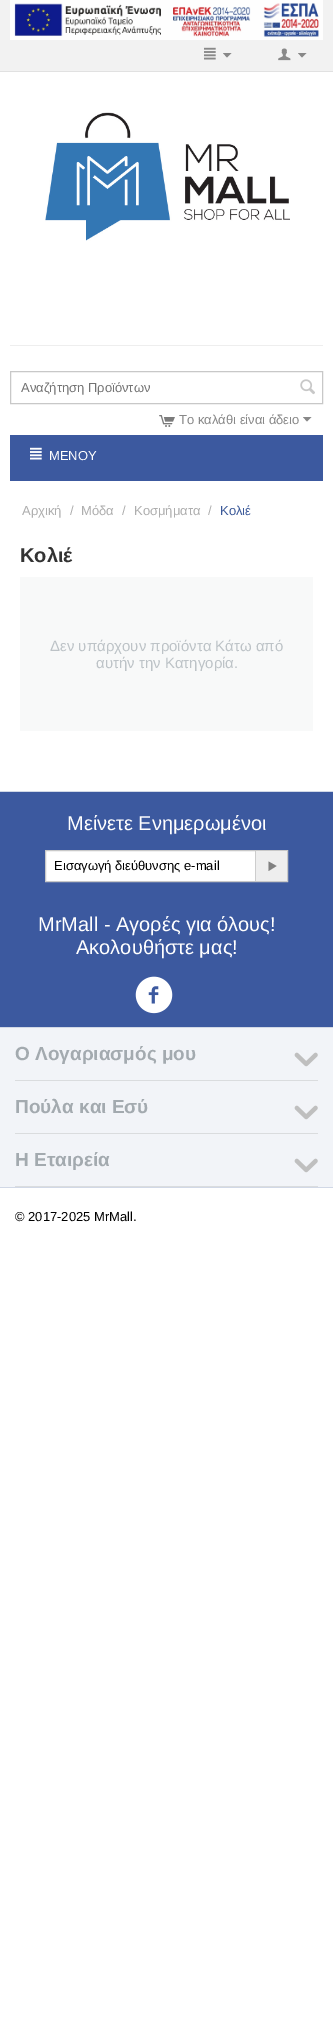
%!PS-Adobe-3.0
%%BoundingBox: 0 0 333 2033
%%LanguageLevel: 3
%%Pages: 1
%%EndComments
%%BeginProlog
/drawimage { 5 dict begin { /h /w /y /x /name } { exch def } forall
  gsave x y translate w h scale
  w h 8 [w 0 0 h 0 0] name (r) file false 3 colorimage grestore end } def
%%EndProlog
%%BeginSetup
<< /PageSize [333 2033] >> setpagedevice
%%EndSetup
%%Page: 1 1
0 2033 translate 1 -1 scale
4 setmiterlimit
1 setgray
0 0 333 2033 rectfill
0.949 setgray
0 0 333 71 rectfill
0.882 setgray
0 71 333 1 rectfill
(images/1.raw) 10 0 313 40 drawimage
(images/2.raw) 204 47 12 13 drawimage
0.533 setgray
newpath 227 57.5 moveto 223 53 lineto 231.5 53 lineto closepath fill
(images/3.raw) 278 48 13 13 drawimage
newpath 302 57.5 moveto 298 53 lineto 306.5 53 lineto closepath fill
(images/4.raw) 45 112 245 129 drawimage
0.933 setgray
10 345 313 1 rectfill
0.784 setgray
10.5 371.5 312 32 rectstroke
(images/5.raw) 300 379 15 16 drawimage
(images/6.raw) 159 415 16 12 drawimage
0.533 setgray
newpath 307 421.5 moveto 303 417 lineto 311.5 417 lineto closepath fill
0.235 0.349 0.624 setrgbcolor
10 435 313 46 rectfill
(images/7.raw) 30 447 12 13 drawimage
0.973 0.976 0.976 setrgbcolor
20 577 293 154 rectfill
0.949 0.957 0.973 setrgbcolor
0 1028 333 159 rectfill
0.235 0.349 0.624 setrgbcolor
0 792 333 235 rectfill
0.82 0.847 0.902 setrgbcolor
0 791 333 1 rectfill
0 1027 333 1 rectfill
1 setgray
46 851 209 30 rectfill
0.784 setgray
45.5 850.5 242 31 rectstroke
0.933 setgray
256 851 31 30 rectfill
0.804 setgray
255 851 1 30 rectfill
0.502 setgray
newpath 268.5 861.5 moveto 276.5 866 lineto 268.5 871 lineto closepath fill
(images/8.raw) 135 976 38 38 drawimage
0.855 0.863 0.871 setrgbcolor
15 1080 303 1 rectfill
(images/9.raw) 294 1052 24 15 drawimage
15 1133 303 1 rectfill
(images/9.raw) 294 1105 24 15 drawimage
15 1186 303 1 rectfill
(images/9.raw) 294 1158 24 15 drawimage
0.82 0.847 0.902 setrgbcolor
0 1187 333 1 rectfill
/LiberationSans-Regular [13 0 0 -13 0 0] selectfont
0.451 setgray
21 392 moveto (Αναζήτηση Προϊόντων) show
0.533 setgray
179 424 moveto (Το καλάθι είναι άδειο) show
1 setgray
49 460 moveto (ΜΕΝΟΥ) show
0.682 setgray
22 515 moveto (Αρχική) show
70 515 moveto (/) show
81 515 moveto (Μόδα) show
122 515 moveto (/) show
134 515 moveto (Κοσμήματα) show
208 515 moveto (/) show
0.231 0.349 0.6 setrgbcolor
220 515 moveto (Κολιέ) show
/LiberationSans-Bold [20 0 0 -20 0 0] selectfont
0.2 setgray
20 562 moveto (Κολιέ) show
/LiberationSans-Regular [15 0 0 -15 0 0] selectfont
0.741 0.765 0.78 setrgbcolor
50 651 moveto (Δεν υπάρχουν προϊόντα Κάτω από) show
96 668 moveto (αυτήν την Κατηγορία.) show
/LiberationSans-Regular [20 0 0 -20 0 0] selectfont
1 setgray
67 830 moveto (Μείνετε Ενημερωμένοι) show
/LiberationSans-Regular [13 0 0 -13 0 0] selectfont
0 setgray
54 870 moveto (Εισαγωγή διεύθυνσης e-mail) show
/LiberationSans-Regular [20 0 0 -20 0 0] selectfont
1 setgray
38 931 moveto (MrMall - Αγορές για όλους!) show
76 954 moveto (Ακολουθήστε μας!) show
/LiberationSans-Bold [19 0 0 -19 0 0] selectfont
0.639 0.667 0.686 setrgbcolor
15 1060 moveto (Ο Λογαριασμός μου) show
15 1113 moveto (Πούλα και Εσύ) show
15 1166 moveto (Η Εταιρεία) show
/LiberationSans-Regular [13 0 0 -13 0 0] selectfont
0 setgray
15 1221 moveto (© 2017-2025 MrMall.) show
showpage
%%EOF
